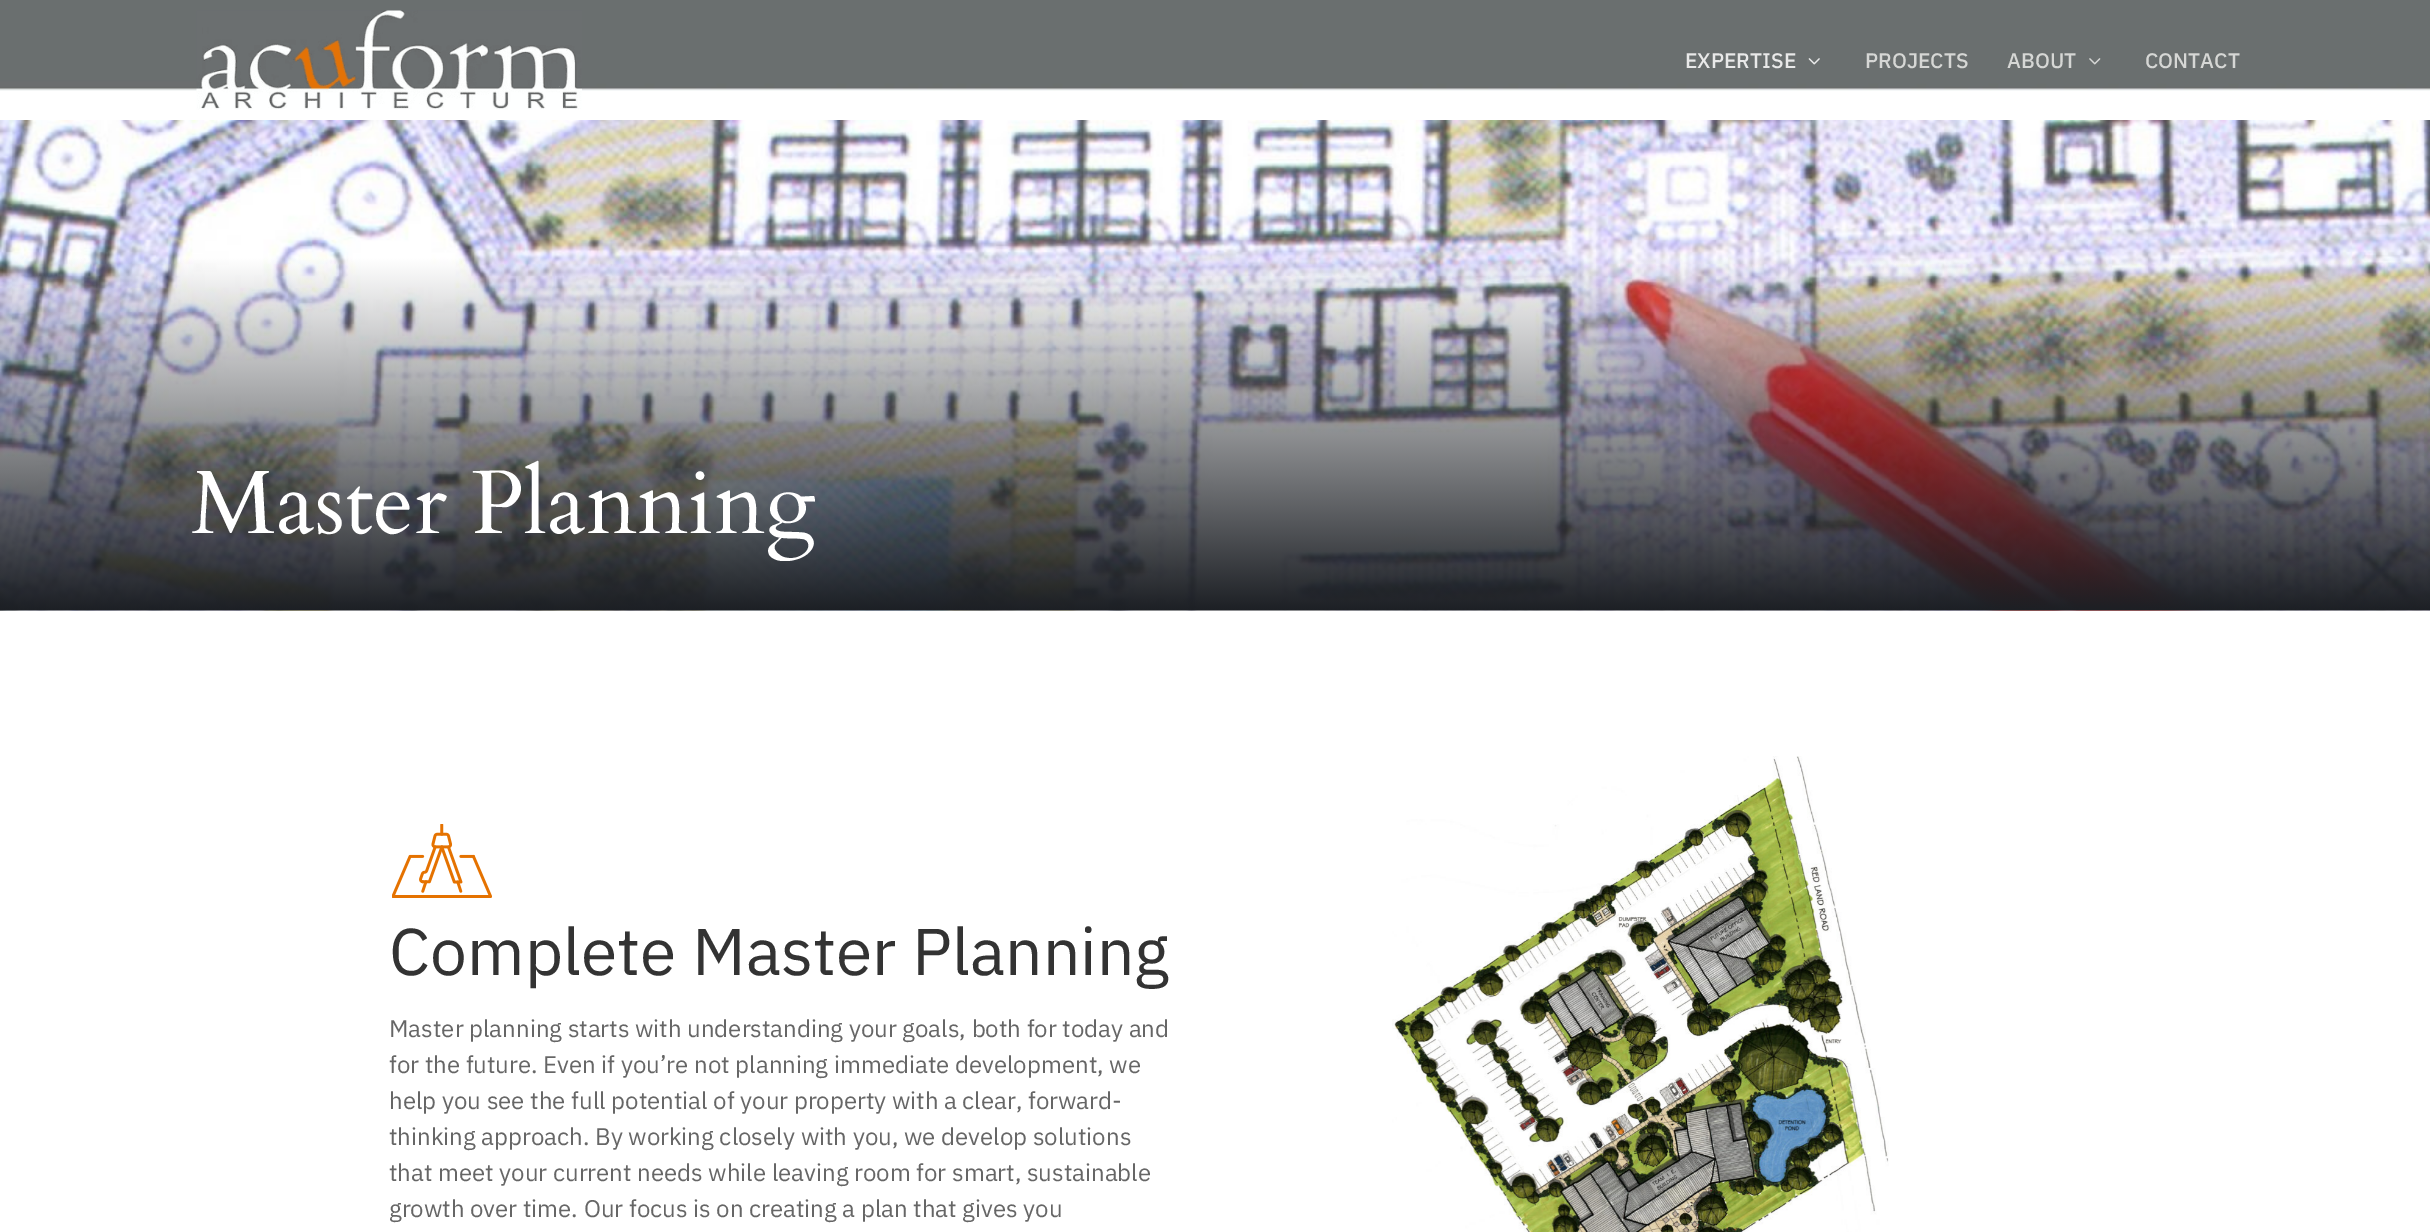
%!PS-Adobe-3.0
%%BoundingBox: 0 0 2430 1232
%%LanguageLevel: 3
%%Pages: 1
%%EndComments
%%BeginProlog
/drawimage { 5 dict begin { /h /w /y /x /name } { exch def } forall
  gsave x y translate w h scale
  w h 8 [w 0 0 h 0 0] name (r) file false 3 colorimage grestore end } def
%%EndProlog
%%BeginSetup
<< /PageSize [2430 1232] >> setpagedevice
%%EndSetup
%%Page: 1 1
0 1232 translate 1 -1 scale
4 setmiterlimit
1 setgray
0 0 2430 1232 rectfill
(images/1.raw) 0 0 2430 91 drawimage
(images/2.raw) 196 10 386 100 drawimage
(images/3.raw) 1808 58 12 7 drawimage
(images/4.raw) 2089 58 12 7 drawimage
(images/5.raw) 0 120 2430 491 drawimage
(images/6.raw) 392 824 100 74 drawimage
(images/7.raw) 1392 756 497 476 drawimage
/IBMPlexSans-Medium [21 0 0 -21 0 0] selectfont
0.914 setgray
1685 68 moveto (EXPERTISE) show
0.839 0.843 0.835 setrgbcolor
1865 68 moveto (PROJECTS) show
2007 68 moveto (ABOUT) show
2145 68 moveto (CONTACT) show
/Cardo-Regular [90 0 0 -90 0 0] selectfont
1 setgray
191 533 moveto (Master Planning) show
/IBMPlexSans-Regular [66 0 0 -66 0 0] selectfont
0.2 setgray
389 975 moveto (Complete Master Planning) show
/IBMPlexSans-Regular [24 0 0 -24 0 0] selectfont
0.4 setgray
389 1037 moveto (Master planning starts with understanding your goals, both for today and) show
389 1073 moveto (for the future. Even if you’re not planning immediate development, we) show
389 1109 moveto (help you see the full potential of your property with a clear, forward-) show
389 1145 moveto (thinking approach. By working closely with you, we develop solutions) show
389 1181 moveto (that meet your current needs while leaving room for smart, sustainable) show
389 1217 moveto (growth over time. Our focus is on creating a plan that gives you) show
showpage
%%EOF
